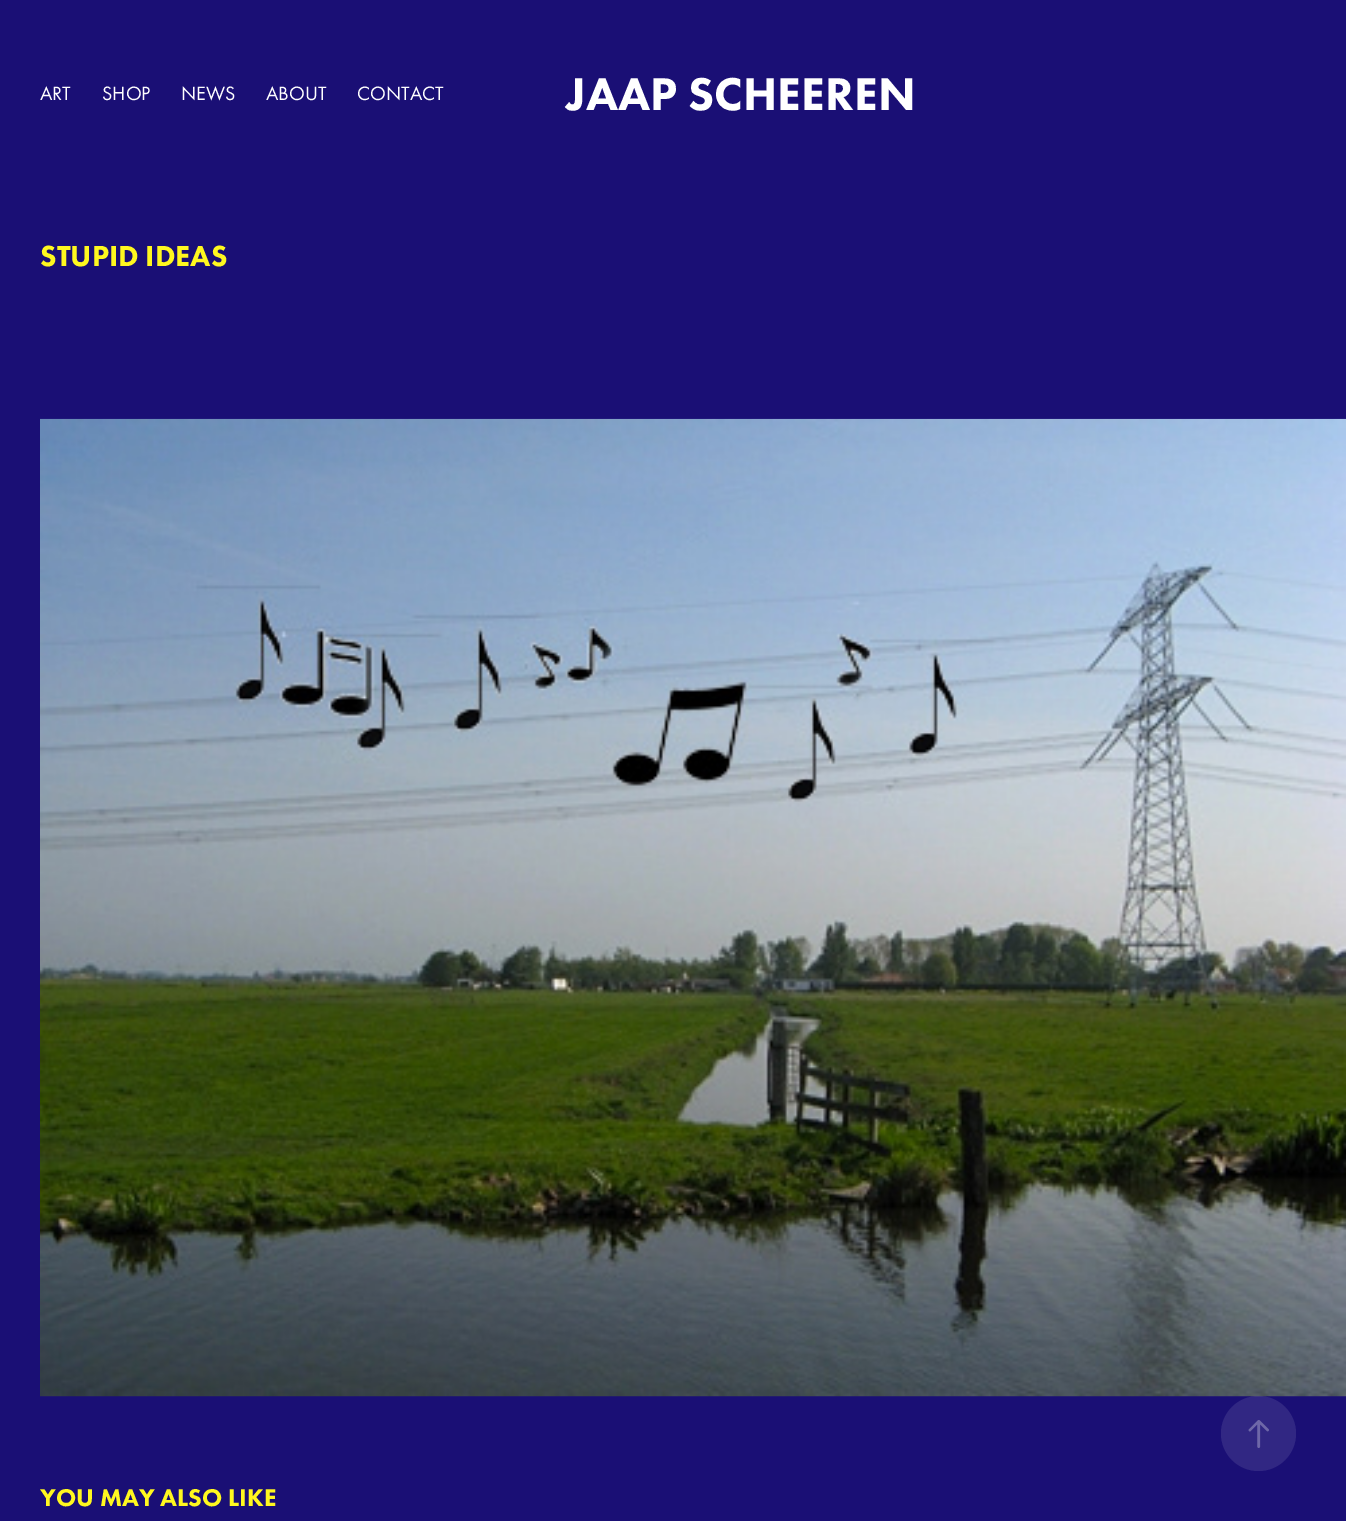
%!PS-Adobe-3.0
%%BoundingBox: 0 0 1346 1521
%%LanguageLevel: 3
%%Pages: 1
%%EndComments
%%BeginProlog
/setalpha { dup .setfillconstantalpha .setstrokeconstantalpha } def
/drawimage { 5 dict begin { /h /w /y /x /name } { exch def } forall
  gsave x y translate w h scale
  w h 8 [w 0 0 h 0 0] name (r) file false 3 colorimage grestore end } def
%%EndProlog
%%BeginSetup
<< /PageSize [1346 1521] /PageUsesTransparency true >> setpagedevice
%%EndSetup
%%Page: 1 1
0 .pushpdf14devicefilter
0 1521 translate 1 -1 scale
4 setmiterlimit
0.102 0.059 0.459 setrgbcolor
0 0 1346 1521 rectfill
(images/1.raw) 40 418 1306 979 drawimage
0.1 setalpha
1 setgray
newpath 1258.5 1433.5 37.5 0 360 arc closepath fill
1 setalpha
(images/2.raw) 1248 1420 21 28 drawimage
/FuturaPT-Regular [20 0 0 -20 0 0] selectfont
40 100 moveto (ART) show
102 100 moveto (SHOP) show
181 100 moveto (NEWS) show
266 100 moveto (ABOUT) show
357 100 moveto (CONTACT) show
/FuturaPT-Black [47.5 0 0 -47.5 0 0] selectfont
566 110 moveto (JAAP SCHEEREN) show
/FuturaPT-Black [30 0 0 -30 0 0] selectfont
1 0.973 0.122 setrgbcolor
40 266 moveto (STUPID IDEAS) show
/FuturaPT-Black [25 0 0 -25 0 0] selectfont
40 1506 moveto (YOU MAY ALSO LIKE) show
.poppdf14devicefilter showpage
%%EOF
